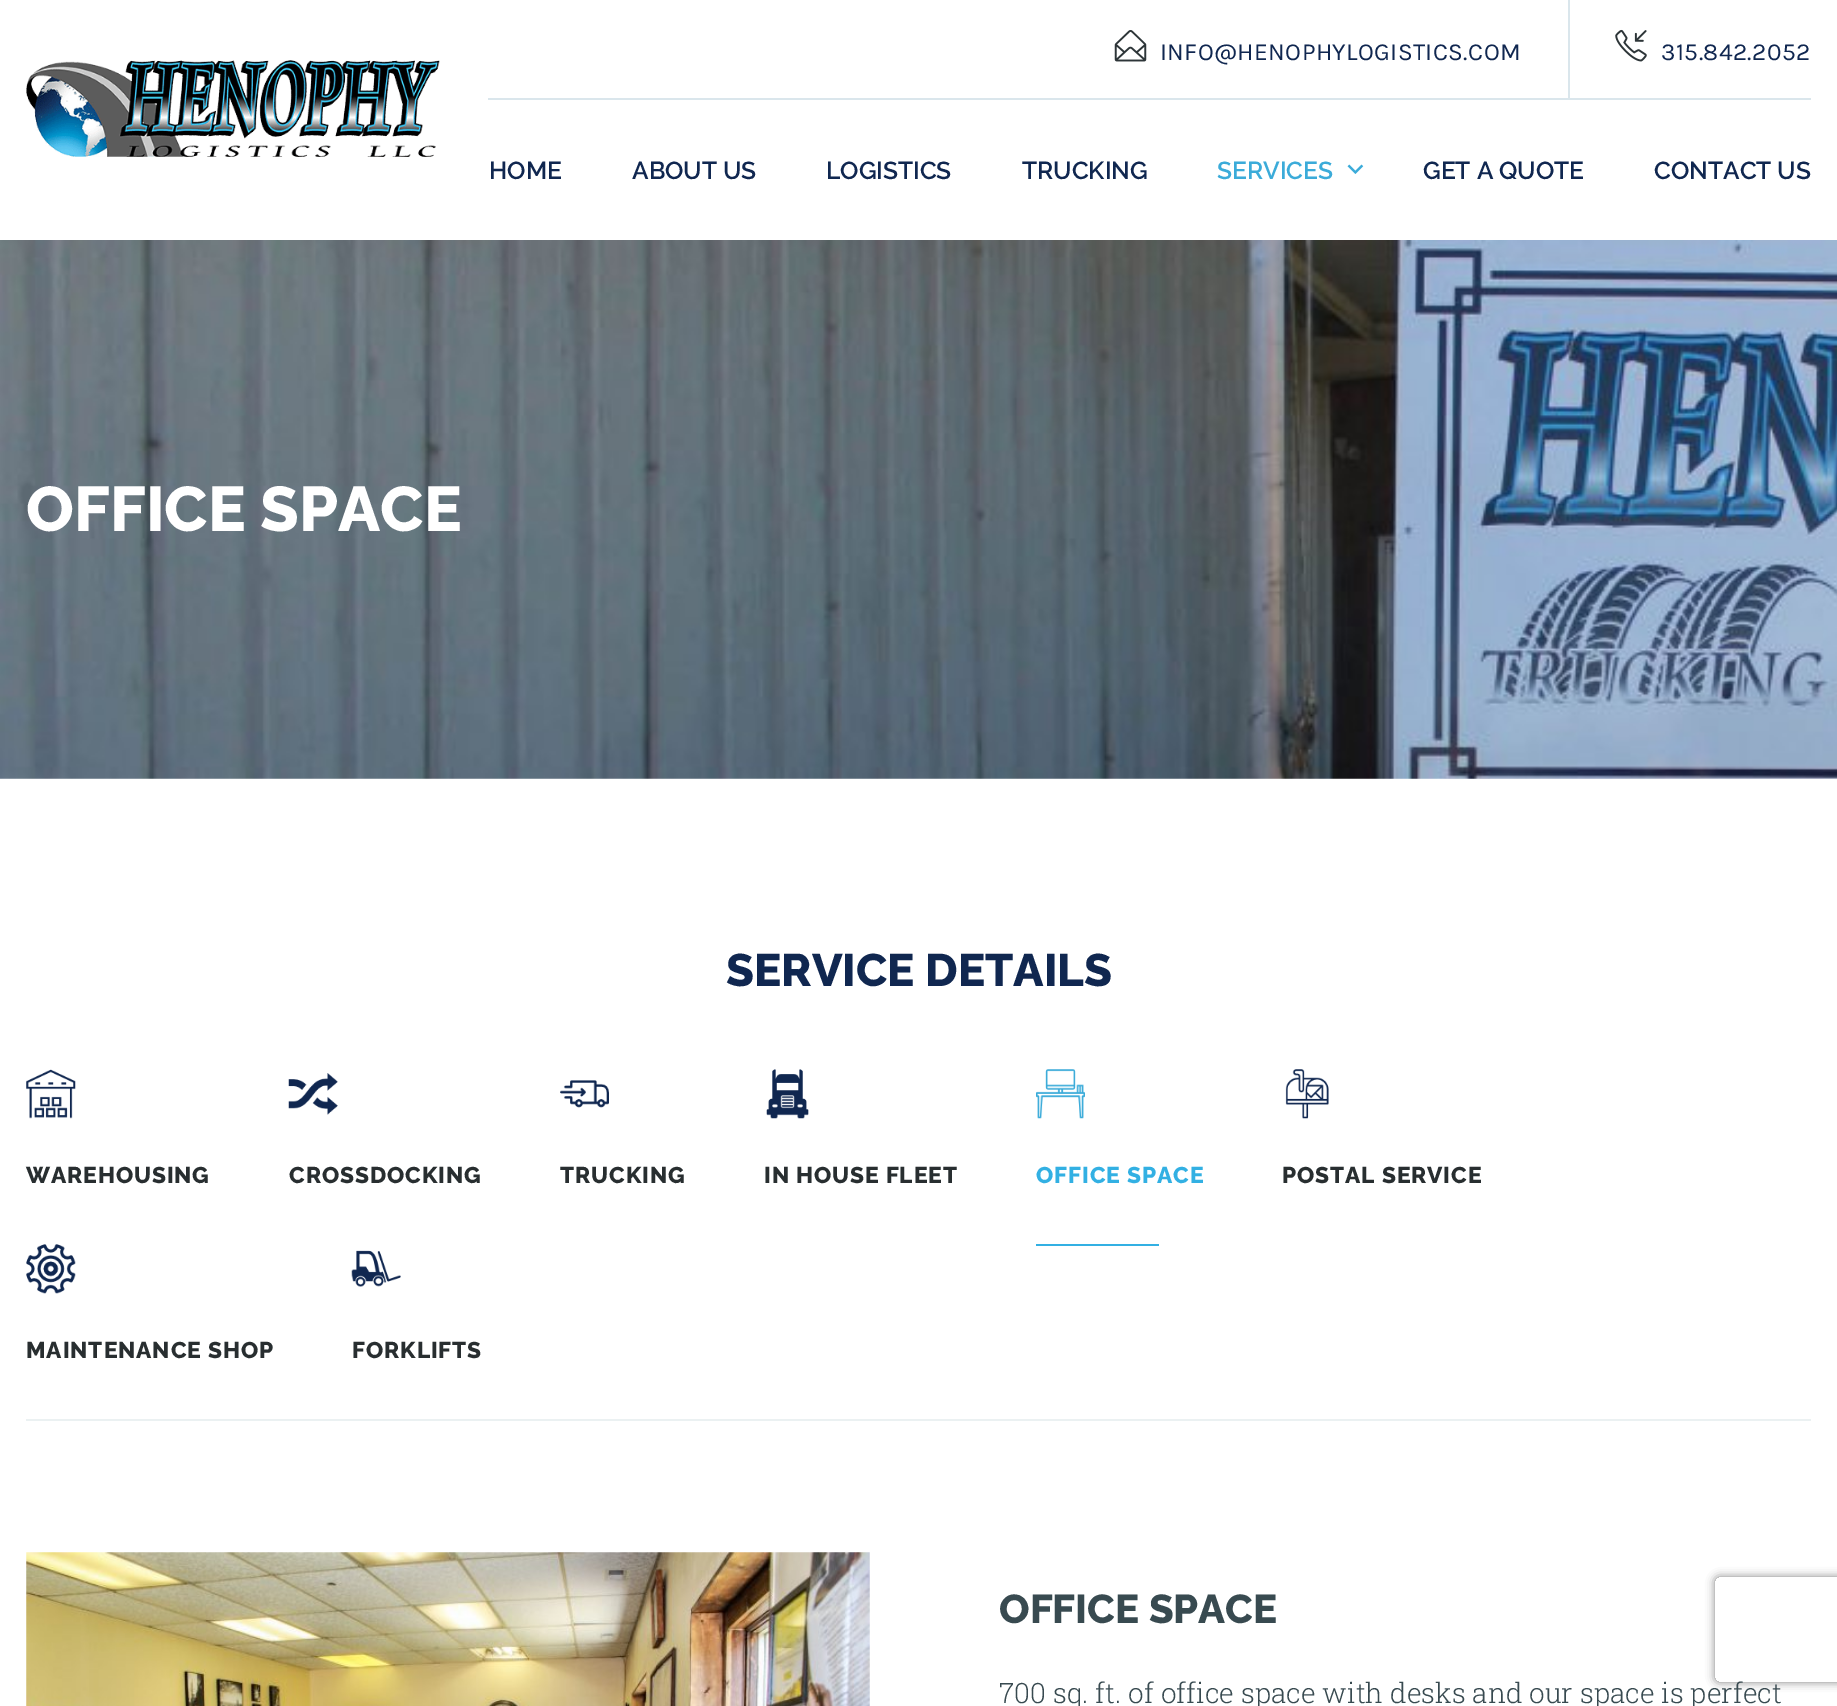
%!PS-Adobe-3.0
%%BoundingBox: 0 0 1837 1706
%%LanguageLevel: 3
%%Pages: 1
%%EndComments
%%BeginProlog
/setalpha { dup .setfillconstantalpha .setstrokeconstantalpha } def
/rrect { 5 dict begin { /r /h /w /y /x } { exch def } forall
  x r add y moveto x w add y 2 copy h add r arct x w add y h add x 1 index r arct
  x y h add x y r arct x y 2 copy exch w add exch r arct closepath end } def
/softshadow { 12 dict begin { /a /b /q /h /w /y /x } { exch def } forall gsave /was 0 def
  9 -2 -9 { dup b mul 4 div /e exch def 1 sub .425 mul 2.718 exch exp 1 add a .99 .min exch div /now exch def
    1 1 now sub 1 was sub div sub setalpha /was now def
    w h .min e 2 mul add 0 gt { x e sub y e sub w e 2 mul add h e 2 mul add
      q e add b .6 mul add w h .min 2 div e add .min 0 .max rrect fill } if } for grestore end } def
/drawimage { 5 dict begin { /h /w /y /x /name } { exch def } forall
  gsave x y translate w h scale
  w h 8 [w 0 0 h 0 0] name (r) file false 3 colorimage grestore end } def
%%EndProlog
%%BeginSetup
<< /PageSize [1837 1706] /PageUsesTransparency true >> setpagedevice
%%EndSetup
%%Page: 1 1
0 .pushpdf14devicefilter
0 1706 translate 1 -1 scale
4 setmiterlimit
1 setgray
0 0 1837 1706 rectfill
(images/1.raw) 1114 30 33 32 drawimage
0.855 0.902 0.925 setrgbcolor
1568 0 2 98 rectfill
(images/2.raw) 1615 29 32 33 drawimage
(images/3.raw) 26 60 414 97 drawimage
488 98 1323 2 rectfill
(images/4.raw) 1347 164 17 10 drawimage
(images/5.raw) 0 240 1837 539 drawimage
0.922 0.945 0.949 setrgbcolor
26 1419 1785 2 rectfill
(images/6.raw) 26 1069 50 50 drawimage
(images/7.raw) 288 1073 50 42 drawimage
(images/8.raw) 560 1080 49 28 drawimage
(images/9.raw) 766 1069 43 50 drawimage
(images/10.raw) 1036 1069 49 50 drawimage
0.196 0.69 0.89 setrgbcolor
1036 1244 123 2 rectfill
(images/11.raw) 1285 1069 44 50 drawimage
(images/12.raw) 26 1244 50 50 drawimage
(images/13.raw) 351 1250 50 37 drawimage
(images/14.raw) 26 1552 844 154 drawimage
gsave
newpath 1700 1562 moveto 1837 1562 lineto 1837 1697 lineto 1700 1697 lineto closepath 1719 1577 moveto 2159 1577 lineto 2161 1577 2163 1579 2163 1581 curveto 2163 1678 lineto 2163 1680 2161 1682 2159 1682 curveto 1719 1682 lineto 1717 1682 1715 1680 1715 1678 curveto 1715 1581 lineto 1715 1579 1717 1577 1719 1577 curveto closepath eoclip newpath
0.502 setgray
1715 1577 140 105 4 4.5 1 softshadow
grestore
/Karla-Regular [24.5 0 0 -24.5 0 0] selectfont
0.063 0.153 0.314 setrgbcolor
1160 60 moveto 0.4 0 (INFO@HENOPHYLOGISTICS.COM) ashow
1661 60 moveto 0.4 0 (315.842.2052) ashow
/Raleway-SemiBold [24.5 0 0 -24.5 0 0] selectfont
489 179 moveto (HOME) show
632 179 moveto (ABOUT US) show
826 179 moveto (LOGISTICS) show
1022 179 moveto (TRUCKING) show
0.231 0.671 0.851 setrgbcolor
1217 179 moveto (SERVICES) show
0.063 0.153 0.314 setrgbcolor
1423 179 moveto (GET A QUOTE) show
1654 179 moveto (CONTACT US) show
/Raleway-ExtraBold [63 0 0 -63 0 0] selectfont
1 setgray
26 531 moveto (OFFICE SPACE) show
/Raleway-ExtraBold [45.5 0 0 -45.5 0 0] selectfont
0.063 0.153 0.314 setrgbcolor
726 986 moveto (SERVICE DETAILS) show
/Raleway-ExtraBold [22.75 0 0 -22.75 0 0] selectfont
0.157 0.18 0.188 setrgbcolor
26 1183 moveto 0.9 0 (WAREHOUSING) ashow
289 1183 moveto 0.9 0 (CROSSDOCKING) ashow
560 1183 moveto 0.9 0 (TRUCKING) ashow
764 1183 moveto 0.9 0 (IN HOUSE FLEET) ashow
0.196 0.69 0.89 setrgbcolor
1036 1183 moveto 0.9 0 (OFFICE SPACE) ashow
0.157 0.18 0.188 setrgbcolor
1282 1183 moveto 0.9 0 (POSTAL SERVICE) ashow
26 1358 moveto 0.9 0 (MAINTENANCE SHOP) ashow
352 1358 moveto 0.9 0 (FORKLIFTS) ashow
/Raleway-ExtraBold [40.25 0 0 -40.25 0 0] selectfont
0.22 0.29 0.314 setrgbcolor
999 1623 moveto (OFFICE SPACE) show
/RobotoSlab-Light [28 0 0 -28 0 0] selectfont
999 1703 moveto (700 sq. ft. of office space with desks and our space is perfect) show
.poppdf14devicefilter showpage
%%EOF
